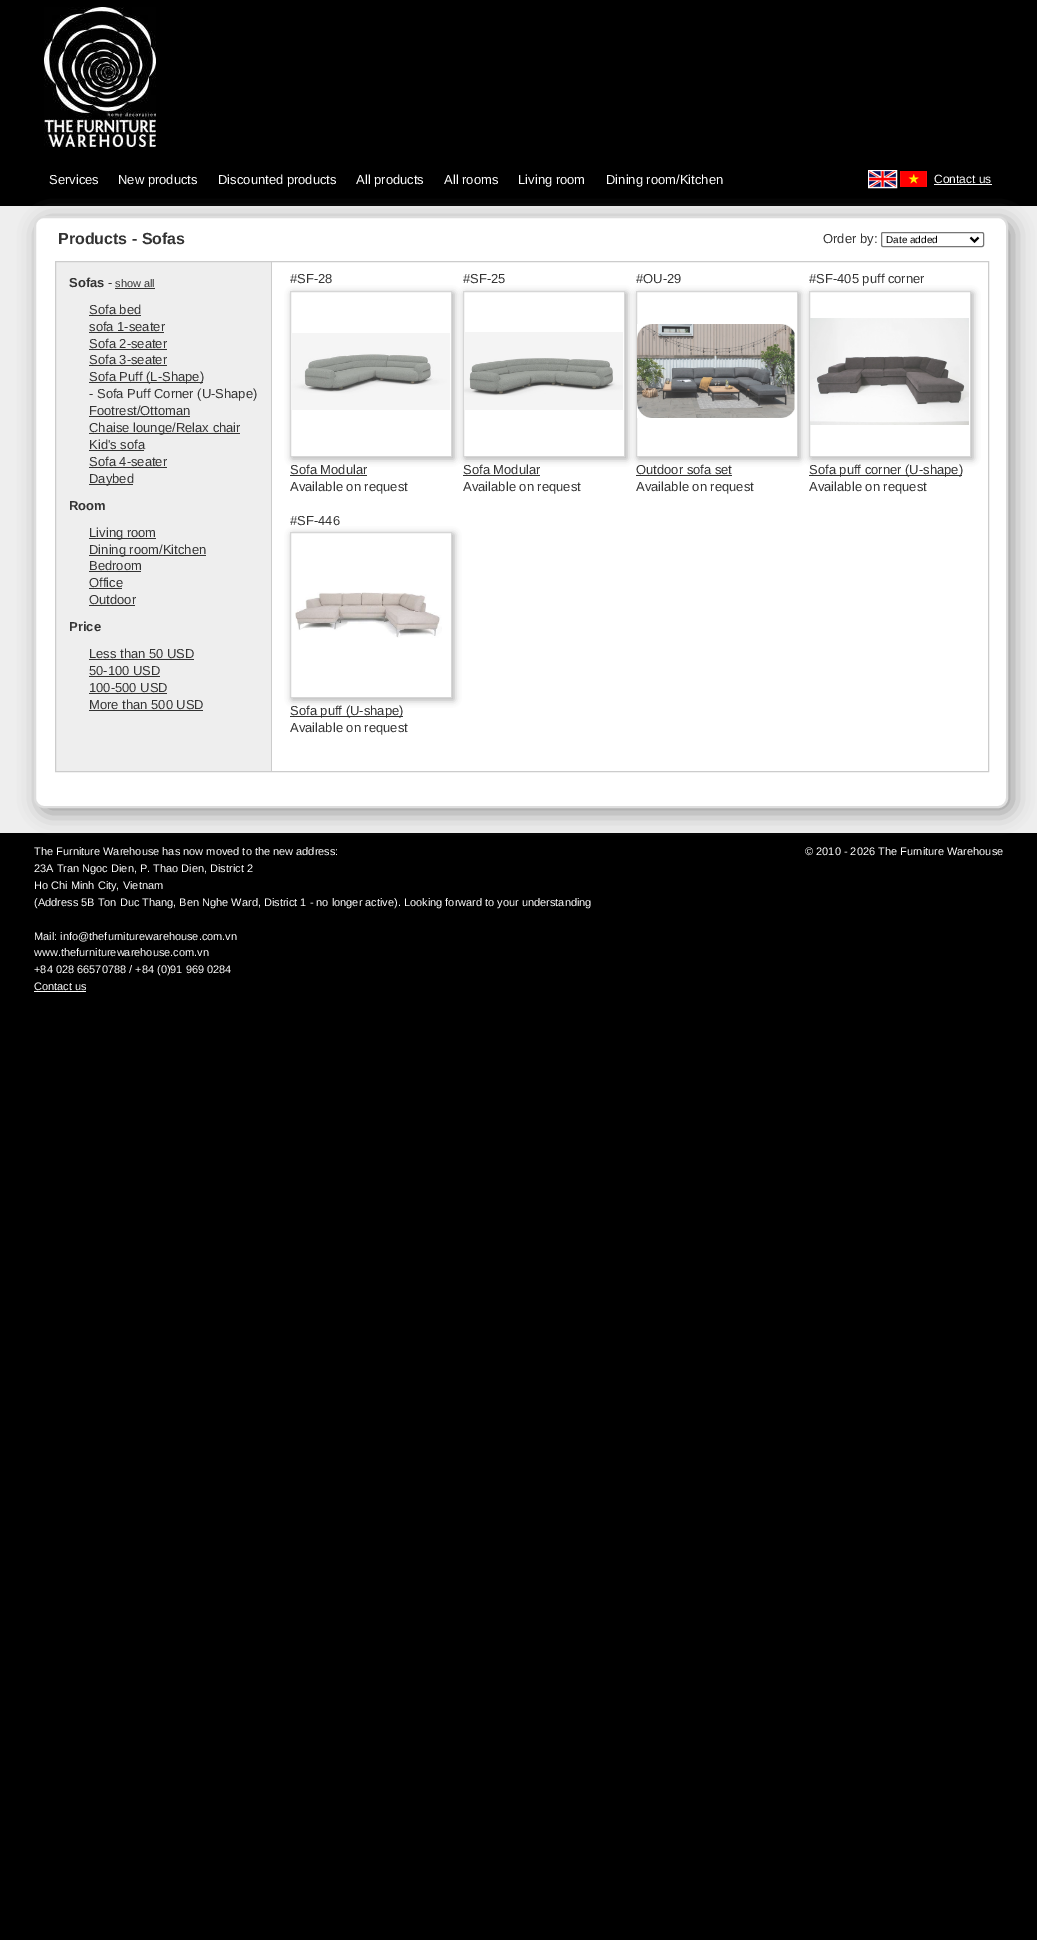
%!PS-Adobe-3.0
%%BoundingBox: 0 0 1037 1940
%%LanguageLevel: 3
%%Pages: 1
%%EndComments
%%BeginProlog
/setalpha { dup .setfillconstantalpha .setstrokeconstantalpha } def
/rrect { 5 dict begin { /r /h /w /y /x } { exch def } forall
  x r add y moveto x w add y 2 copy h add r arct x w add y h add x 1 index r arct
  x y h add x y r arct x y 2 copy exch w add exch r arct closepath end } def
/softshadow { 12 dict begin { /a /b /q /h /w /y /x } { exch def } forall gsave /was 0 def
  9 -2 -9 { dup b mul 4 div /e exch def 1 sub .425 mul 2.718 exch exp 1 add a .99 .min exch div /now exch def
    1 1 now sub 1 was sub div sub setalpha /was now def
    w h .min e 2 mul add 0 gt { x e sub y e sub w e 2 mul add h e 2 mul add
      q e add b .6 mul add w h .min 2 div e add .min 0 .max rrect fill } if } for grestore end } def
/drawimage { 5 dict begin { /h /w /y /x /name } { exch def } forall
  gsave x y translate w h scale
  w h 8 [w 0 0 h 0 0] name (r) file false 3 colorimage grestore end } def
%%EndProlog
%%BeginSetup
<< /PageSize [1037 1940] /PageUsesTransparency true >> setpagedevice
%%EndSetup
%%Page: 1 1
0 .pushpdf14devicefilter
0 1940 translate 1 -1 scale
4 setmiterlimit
0 setgray
0 0 1037 1940 rectfill
(images/1.raw) 44 7 112 140 drawimage
1 setgray
868.5 170.5 28 17 rectstroke
(images/2.raw) 869 171 27 16 drawimage
(images/3.raw) 900 171 27 16 drawimage
934 184 58 1 rectfill
0.933 setgray
0 206 1037 627 rectfill
0.6 setgray
39 221 974 592 10 10 1 softshadow
1 setgray
35 217 972 590 9 rrect gsave fill grestore
0.867 setgray
2 setlinewidth
stroke
0.463 setgray
1 setlinewidth
881.5 232.5 102 14 1.5 rrect stroke
0 setgray
2 setlinewidth
newpath 970.5 237.5 moveto 974.5 241.5 lineto 978.5 237.5 lineto stroke
0.933 setgray
56 262 215 509 rectfill
0.8 setgray
1 setlinewidth
55.5 261.5 933 510 rectstroke
0.2 setgray
115 288 40 1 rectfill
89 315 52 1 rectfill
89 332 75 1 rectfill
89 349 78 1 rectfill
89 365 78 1 rectfill
89 382 114 1 rectfill
89 416 101 1 rectfill
89 433 151 1 rectfill
89 450 55 1 rectfill
89 467 78 1 rectfill
89 484 44 1 rectfill
89 538 67 1 rectfill
89 555 117 1 rectfill
89 571 52 1 rectfill
89 588 33 1 rectfill
89 605 46 1 rectfill
89 659 105 1 rectfill
89 676 71 1 rectfill
89 693 78 1 rectfill
89 710 114 1 rectfill
0.8 setgray
271 262 1 509 rectfill
gsave
newpath 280 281 moveto 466 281 lineto 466 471 lineto 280 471 lineto closepath 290 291 moveto 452 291 lineto 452 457 lineto 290 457 lineto closepath eoclip newpath
0.6 setgray
292 293 162 166 0 3.5 0.8 softshadow
grestore
0.839 setgray
290.5 291.5 161 165 rectstroke
(images/4.raw) 291 333 159 77 drawimage
0.2 setgray
290 475 77 1 rectfill
gsave
newpath 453 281 moveto 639 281 lineto 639 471 lineto 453 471 lineto closepath 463 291 moveto 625 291 lineto 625 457 lineto 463 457 lineto closepath eoclip newpath
0.6 setgray
465 293 162 166 0 3.5 0.8 softshadow
grestore
0.839 setgray
463.5 291.5 161 165 rectstroke
(images/5.raw) 464 332 159 78 drawimage
0.2 setgray
463 475 77 1 rectfill
gsave
newpath 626 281 moveto 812 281 lineto 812 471 lineto 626 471 lineto closepath 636 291 moveto 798 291 lineto 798 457 lineto 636 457 lineto closepath eoclip newpath
0.6 setgray
638 293 162 166 0 3.5 0.8 softshadow
grestore
0.839 setgray
636.5 291.5 161 165 rectstroke
(images/6.raw) 637 324 158 94 drawimage
0.2 setgray
636 475 96 1 rectfill
gsave
newpath 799 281 moveto 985 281 lineto 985 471 lineto 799 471 lineto closepath 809 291 moveto 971 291 lineto 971 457 lineto 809 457 lineto closepath eoclip newpath
0.6 setgray
811 293 162 166 0 3.5 0.8 softshadow
grestore
0.839 setgray
809.5 291.5 161 165 rectstroke
(images/7.raw) 810 318 159 107 drawimage
0.2 setgray
809 475 153 1 rectfill
gsave
newpath 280 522 moveto 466 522 lineto 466 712 lineto 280 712 lineto closepath 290 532 moveto 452 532 lineto 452 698 lineto 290 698 lineto closepath eoclip newpath
0.6 setgray
292 534 162 166 0 3.5 0.8 softshadow
grestore
0.839 setgray
290.5 532.5 161 165 rectstroke
(images/8.raw) 295 592 147 46 drawimage
0.2 setgray
290 716 113 1 rectfill
1 setgray
34 991 52 1 rectfill
/LiberationSans-Regular [13 0 0 -13 0 0] selectfont
49 184 moveto (Services) show
118 184 moveto (New products) show
218 184 moveto (Discounted products) show
356 184 moveto (All products) show
444 184 moveto (All rooms) show
518 184 moveto (Living room) show
606 184 moveto (Dining room/Kitchen) show
/LiberationSans-Regular [12 0 0 -12 0 0] selectfont
934 183 moveto (Contact us) show
/LiberationSans-Bold [16 0 0 -16 0 0] selectfont
0.2 setgray
58 244 moveto (Products - Sofas) show
/LiberationSans-Regular [13 0 0 -13 0 0] selectfont
823 243 moveto (Order by:) show
/LiberationSans-Regular [10 0 0 -10 0 0] selectfont
0 setgray
886 243 moveto (Date added) show
/LiberationSans-Bold [13 0 0 -13 0 0] selectfont
0.2 setgray
69 287 moveto (Sofas) show
/LiberationSans-Regular [13 0 0 -13 0 0] selectfont
108 287 moveto (-) show
/LiberationSans-Regular [11 0 0 -11 0 0] selectfont
115 287 moveto (show all) show
/LiberationSans-Regular [13 0 0 -13 0 0] selectfont
89 314 moveto (Sofa bed) show
89 331 moveto (sofa 1-seater) show
89 348 moveto (Sofa 2-seater) show
89 364 moveto (Sofa 3-seater) show
89 381 moveto (Sofa Puff \(L-Shape\)) show
89 398 moveto (- Sofa Puff Corner \(U-Shape\)) show
89 415 moveto (Footrest/Ottoman) show
89 432 moveto (Chaise lounge/Relax chair) show
89 449 moveto (Kid's sofa) show
89 466 moveto (Sofa 4-seater) show
89 483 moveto (Daybed) show
/LiberationSans-Bold [13 0 0 -13 0 0] selectfont
69 510 moveto (Room) show
/LiberationSans-Regular [13 0 0 -13 0 0] selectfont
89 537 moveto (Living room) show
89 554 moveto (Dining room/Kitchen) show
89 570 moveto (Bedroom) show
89 587 moveto (Office) show
89 604 moveto (Outdoor) show
/LiberationSans-Bold [13 0 0 -13 0 0] selectfont
69 631 moveto (Price) show
/LiberationSans-Regular [13 0 0 -13 0 0] selectfont
89 658 moveto (Less than 50 USD) show
89 675 moveto (50-100 USD) show
89 692 moveto (100-500 USD) show
89 709 moveto (More than 500 USD) show
290 283 moveto (#SF-28) show
290 474 moveto (Sofa Modular) show
290 491 moveto (Available on request) show
463 283 moveto (#SF-25) show
463 474 moveto (Sofa Modular) show
463 491 moveto (Available on request) show
636 283 moveto (#OU-29) show
636 474 moveto (Outdoor sofa set) show
636 491 moveto (Available on request) show
809 283 moveto (#SF-405 puff corner) show
809 474 moveto (Sofa puff corner \(U-shape\)) show
809 491 moveto (Available on request) show
290 525 moveto (#SF-446) show
290 715 moveto (Sofa puff \(U-shape\)) show
290 732 moveto (Available on request) show
/LiberationSans-Regular [11 0 0 -11 0 0] selectfont
1 setgray
34 855 moveto (The Furniture Warehouse has now moved to the new address:) show
34 872 moveto (23A Tran Ngoc Dien, P. Thao Dien, District 2) show
34 889 moveto (Ho Chi Minh City, Vietnam) show
34 906 moveto (\(Address 5B Ton Duc Thang, Ben Nghe Ward, District 1 - no longer active\). Looking forward to your understanding) show
34 940 moveto (Mail: info@thefurniturewarehouse.com.vn) show
34 956 moveto (www.thefurniturewarehouse.com.vn) show
34 973 moveto (+84 028 66570788 / +84 \(0\)91 969 0284) show
34 990 moveto (Contact us) show
805 855 moveto (© 2010 - 2026 The Furniture Warehouse) show
.poppdf14devicefilter showpage
%%EOF
